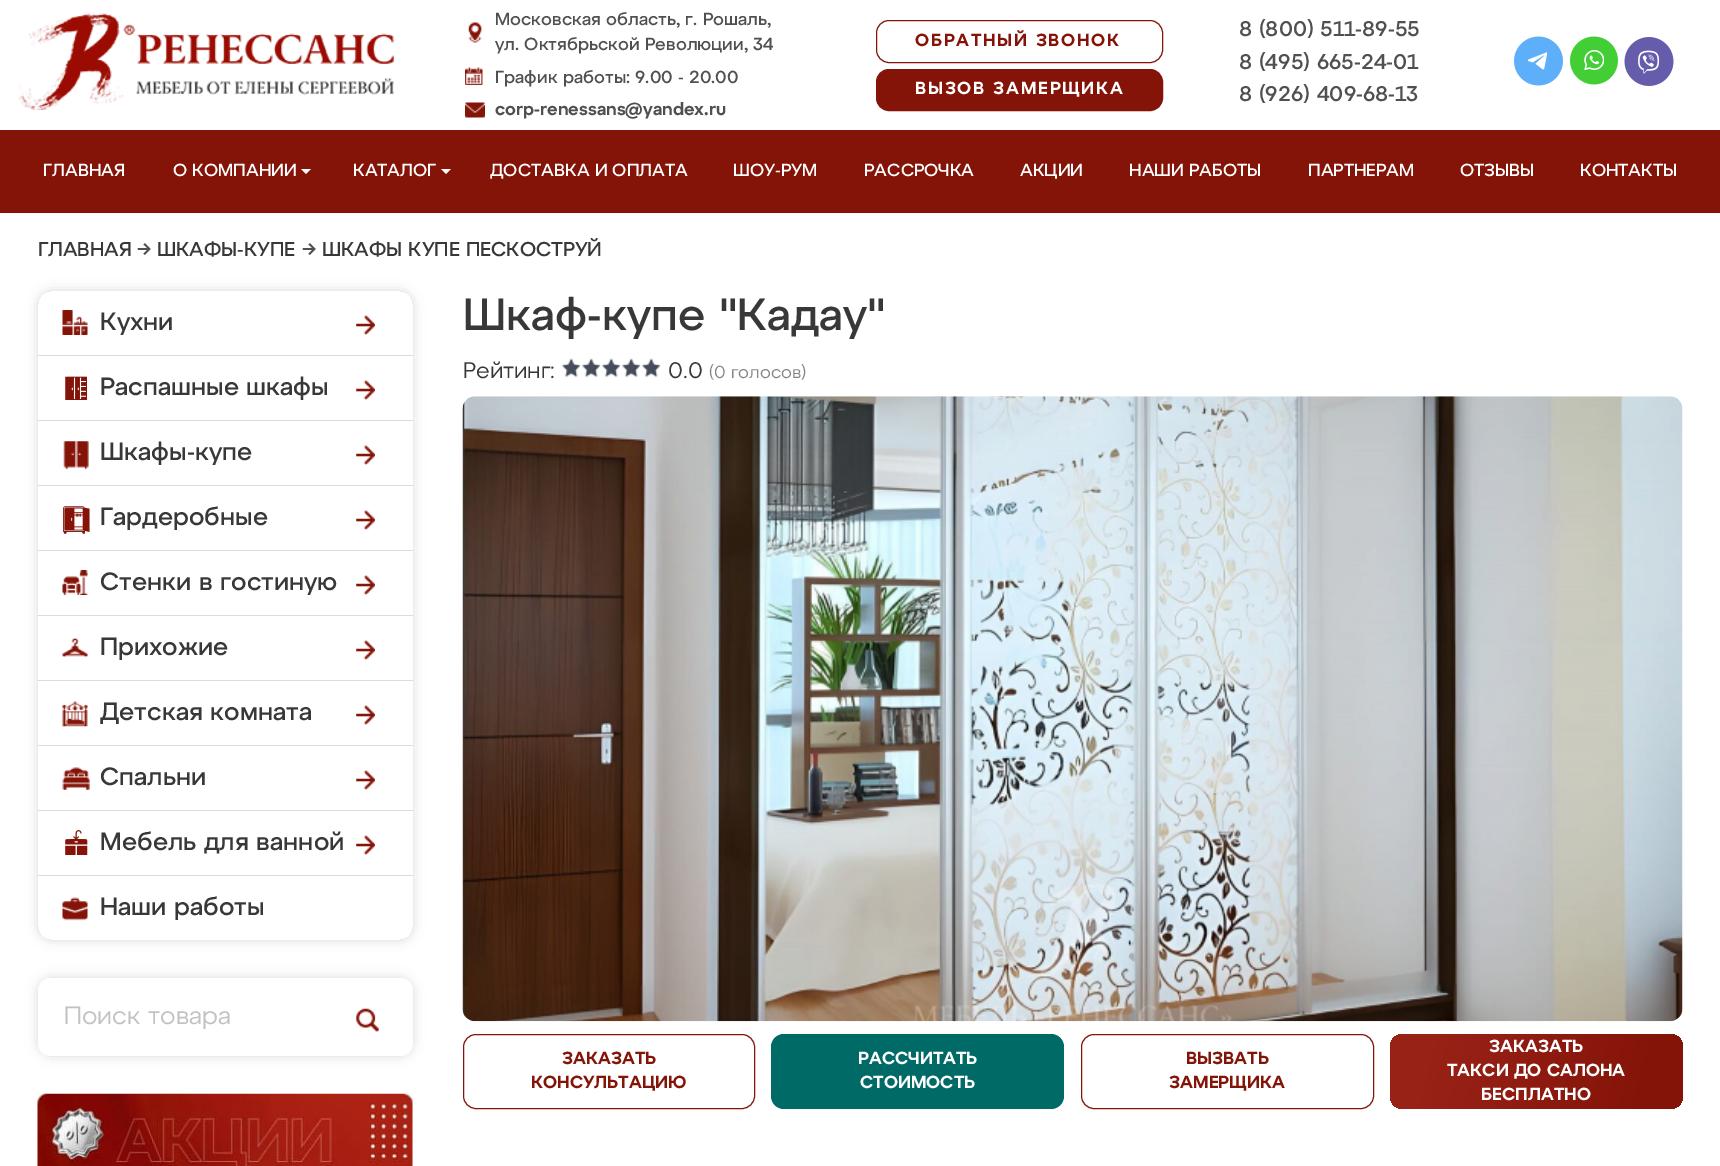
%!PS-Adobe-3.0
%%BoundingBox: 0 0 1720 1166
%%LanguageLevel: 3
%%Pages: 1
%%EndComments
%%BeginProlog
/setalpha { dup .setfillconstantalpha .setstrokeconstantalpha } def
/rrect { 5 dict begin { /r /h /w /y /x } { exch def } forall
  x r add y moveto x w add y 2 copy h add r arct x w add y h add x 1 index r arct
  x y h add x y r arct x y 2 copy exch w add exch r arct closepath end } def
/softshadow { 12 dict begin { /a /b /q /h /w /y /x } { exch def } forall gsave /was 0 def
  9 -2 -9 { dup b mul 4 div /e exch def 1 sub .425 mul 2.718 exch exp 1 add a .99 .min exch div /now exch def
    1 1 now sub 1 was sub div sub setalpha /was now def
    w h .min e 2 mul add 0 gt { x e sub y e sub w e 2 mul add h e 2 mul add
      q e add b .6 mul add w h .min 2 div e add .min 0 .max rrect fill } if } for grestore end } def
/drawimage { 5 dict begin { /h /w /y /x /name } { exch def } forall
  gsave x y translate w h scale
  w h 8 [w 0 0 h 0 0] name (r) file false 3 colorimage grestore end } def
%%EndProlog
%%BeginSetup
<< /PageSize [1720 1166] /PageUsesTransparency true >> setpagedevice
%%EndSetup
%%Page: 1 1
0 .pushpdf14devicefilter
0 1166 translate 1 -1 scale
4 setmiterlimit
1 setgray
0 0 1720 1166 rectfill
(images/1.raw) 19 13 375 97 drawimage
(images/2.raw) 468 22 14 21 drawimage
(images/3.raw) 465 67 18 18 drawimage
(images/4.raw) 465 102 20 16 drawimage
0.518 0.075 0.031 setrgbcolor
876.5 20.5 286 42 12.5 rrect stroke
876.5 69.5 286 41 12.5 rrect gsave fill grestore
stroke
(images/5.raw) 1514 36 49 50 drawimage
(images/6.raw) 1570 36 48 49 drawimage
(images/7.raw) 1624 37 50 49 drawimage
0 130 1720 83 rectfill
1 setgray
newpath 306 174 moveto 301 169 lineto 311 169 lineto closepath fill
newpath 446 174 moveto 441 169 lineto 451 169 lineto closepath fill
gsave
newpath 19 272 moveto 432 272 lineto 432 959 lineto 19 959 lineto closepath 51 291 moveto 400 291 lineto 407 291 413 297 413 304 curveto 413 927 lineto 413 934 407 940 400 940 curveto 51 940 lineto 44 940 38 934 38 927 curveto 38 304 lineto 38 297 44 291 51 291 curveto closepath eoclip newpath
0.851 setgray
38 291 375 649 13 6 1 softshadow
grestore
0.859 setgray
38 355 375 1 rectfill
(images/8.raw) 62 310 26 25 drawimage
(images/9.raw) 356 315 19 20 drawimage
38 420 375 1 rectfill
(images/10.raw) 65 376 23 24 drawimage
(images/9.raw) 356 380 19 20 drawimage
38 485 375 1 rectfill
(images/11.raw) 63 441 26 28 drawimage
(images/9.raw) 356 445 19 20 drawimage
38 550 375 1 rectfill
(images/12.raw) 63 506 27 28 drawimage
(images/9.raw) 356 510 19 20 drawimage
38 615 375 1 rectfill
(images/13.raw) 62 570 26 25 drawimage
(images/14.raw) 356 575 19 20 drawimage
38 680 375 1 rectfill
(images/15.raw) 62 637 26 21 drawimage
(images/9.raw) 356 640 19 20 drawimage
38 745 375 1 rectfill
(images/16.raw) 62 701 26 26 drawimage
(images/9.raw) 356 705 19 20 drawimage
38 810 375 1 rectfill
(images/17.raw) 62 767 28 23 drawimage
(images/9.raw) 356 770 19 20 drawimage
38 875 375 1 rectfill
(images/18.raw) 65 830 23 25 drawimage
(images/9.raw) 356 835 19 20 drawimage
(images/19.raw) 62 897 26 24 drawimage
0.851 setgray
38 978 375 78 13 6 1 softshadow
1 setgray
38 978 375 78 13 rrect fill
(images/20.raw) 356 1008 23 24 drawimage
(images/21.raw) 37 1093 376 73 drawimage
(images/22.raw) 562 358 99 20 drawimage
(images/23.raw) 462 396 1221 626 drawimage
0.518 0.075 0.031 setrgbcolor
463.5 1034.5 291 74 12.5 rrect stroke
0 0.416 0.404 setrgbcolor
771 1034 293 75 13 rrect fill
0.518 0.075 0.031 setrgbcolor
1081.5 1034.5 292 74 12.5 rrect stroke
gsave 1390 1034 293 75 13 rrect clip newpath
<< /ShadingType 2 /ColorSpace /DeviceRGB /Coords [1391 1030 1681 1113] /Extend [true true] /Function << /FunctionType 3 /Domain [0 1] /Functions [<< /FunctionType 2 /Domain [0 1] /C0 [0.6 0.133 0.09] /C1 [0.6 0.133 0.09] /N 1 >> << /FunctionType 2 /Domain [0 1] /C0 [0.6 0.133 0.09] /C1 [0.518 0.075 0.031] /N 1 >> << /FunctionType 2 /Domain [0 1] /C0 [0.518 0.075 0.031] /C1 [0.518 0.075 0.031] /N 1 >>] /Bounds [0.14 0.88] /Encode [0 1 0 1 0 1] >> >> shfill grestore
/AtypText-Medium [17.5 0 0 -17.5 0 0] selectfont
0.314 setgray
495 25 moveto (Московская область, г. Рошаль,) show
495 50 moveto (ул. Октябрьской Революции, 34) show
495 83 moveto (График работы: 9.00 - 20.00) show
/AtypText-SemiBold [17.5 0 0 -17.5 0 0] selectfont
495 115 moveto (corp-renessans@yandex.ru) show
0.518 0.075 0.031 setrgbcolor
915 46 moveto 1.75 0 (ОБРАТНЫЙ ЗВОНОК) ashow
1 setgray
915 94 moveto 1.75 0 (ВЫЗОВ ЗАМЕРЩИКА) ashow
/AtypText-Medium [21.25 0 0 -21.25 0 0] selectfont
0.314 setgray
1239 36 moveto (8 \(800\) 511-89-55) show
1239 69 moveto (8 \(495\) 665-24-01) show
1239 101 moveto (8 \(926\) 409-68-13) show
/AtypText-Medium [17.5 0 0 -17.5 0 0] selectfont
1 setgray
43 176 moveto (ГЛАВНАЯ) show
173 176 moveto (О КОМПАНИИ) show
353 176 moveto (КАТАЛОГ) show
490 176 moveto (ДОСТАВКА И ОПЛАТА) show
733 176 moveto (ШОУ-РУМ) show
864 176 moveto (РАССРОЧКА) show
1020 176 moveto (АКЦИИ) show
1129 176 moveto (НАШИ РАБОТЫ) show
1308 176 moveto (ПАРТНЕРАМ) show
1460 176 moveto (ОТЗЫВЫ) show
1580 176 moveto (КОНТАКТЫ) show
/AtypText-Medium [20 0 0 -20 0 0] selectfont
0.22 setgray
38 256 moveto (ГЛАВНАЯ) show
0.314 setgray
137 256 moveto (→) show
0.22 setgray
157 256 moveto (ШКАФЫ-КУПЕ) show
0.314 setgray
302 256 moveto (→) show
0.22 setgray
322 256 moveto (ШКАФЫ КУПЕ ПЕСКОСТРУЙ) show
/AtypText-Medium [25 0 0 -25 0 0] selectfont
100 330 moveto (Кухни) show
100 395 moveto (Распашные шкафы) show
100 460 moveto (Шкафы-купе) show
100 525 moveto (Гардеробные) show
100 590 moveto (Стенки в гостиную) show
100 655 moveto (Прихожие) show
100 720 moveto (Детская комната) show
100 785 moveto (Спальни) show
100 850 moveto (Мебель для ванной) show
100 915 moveto (Наши работы) show
/AtypText-Regular [25 0 0 -25 0 0] selectfont
0.757 setgray
64 1024 moveto (Поиск товара) show
/AtypText-Medium [45 0 0 -45 0 0] selectfont
0.22 setgray
463 330 moveto (Шкаф-купе "Кадау") show
/AtypText-Regular [22.5 0 0 -22.5 0 0] selectfont
463 378 moveto (Рейтинг:) show
668 378 moveto (0.0) show
/AtypText-Regular [17.5 0 0 -17.5 0 0] selectfont
0.522 setgray
709 378 moveto (\(0 голосов\)) show
/AtypText-SemiBold [17.5 0 0 -17.5 0 0] selectfont
0.518 0.075 0.031 setrgbcolor
562 1064 moveto (ЗАКАЗАТЬ) show
531 1088 moveto (КОНСУЛЬТАЦИЮ) show
1 setgray
858 1064 moveto (РАССЧИТАТЬ) show
860 1088 moveto (СТОИМОСТЬ) show
0.518 0.075 0.031 setrgbcolor
1186 1064 moveto (ВЫЗВАТЬ) show
1169 1088 moveto (ЗАМЕРЩИКА) show
1 setgray
1489 1052 moveto (ЗАКАЗАТЬ) show
1447 1076 moveto (ТАКСИ ДО САЛОНА) show
1481 1100 moveto (БЕСПЛАТНО) show
.poppdf14devicefilter showpage
%%EOF
